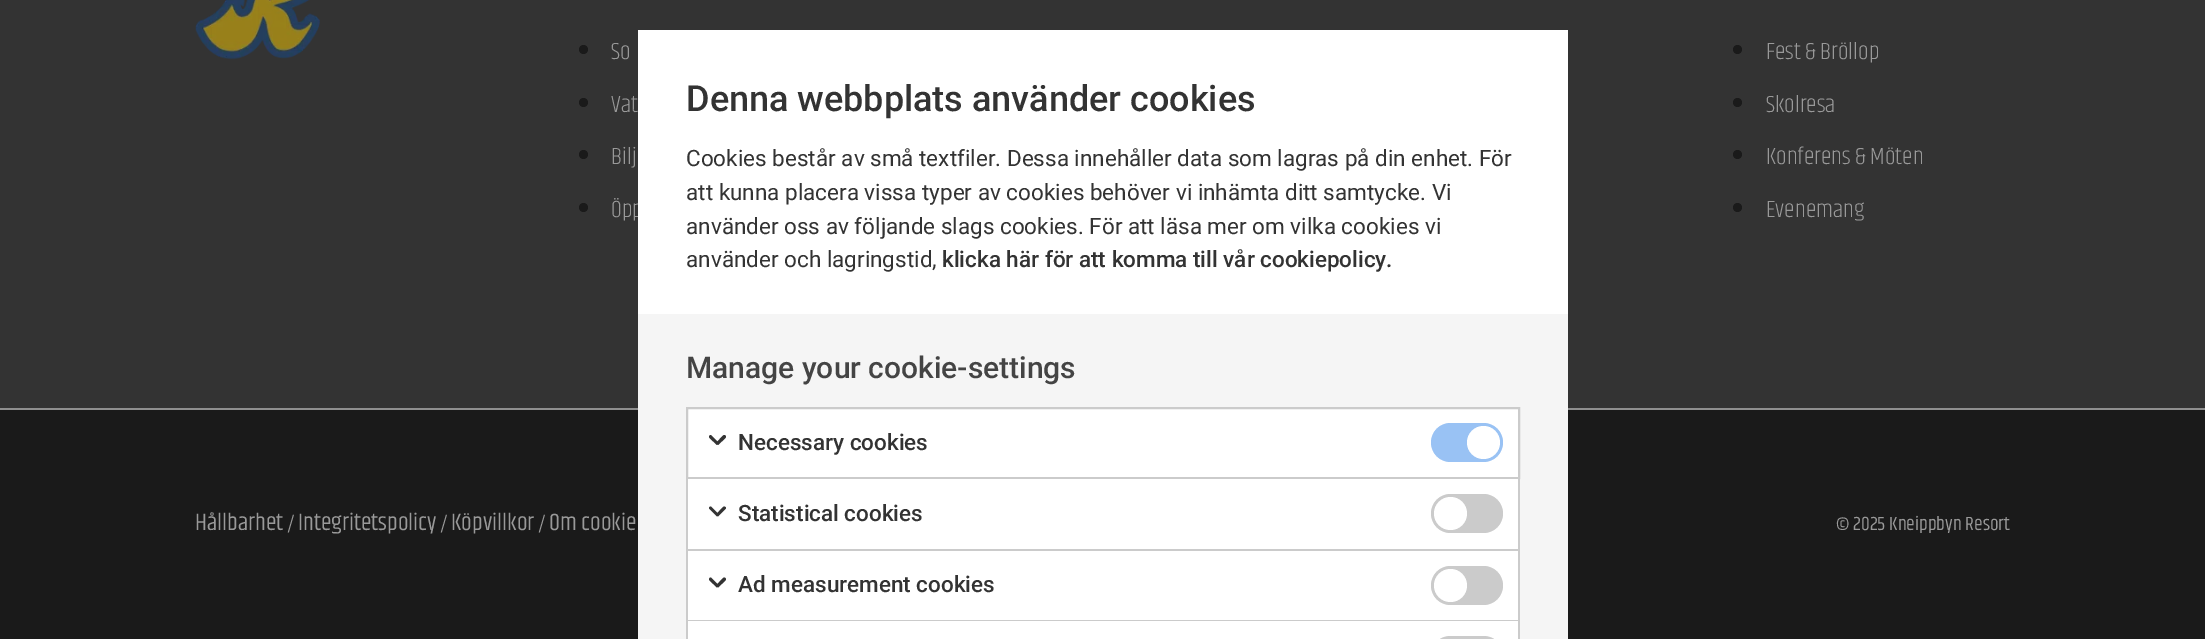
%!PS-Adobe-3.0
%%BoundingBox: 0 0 2205 639
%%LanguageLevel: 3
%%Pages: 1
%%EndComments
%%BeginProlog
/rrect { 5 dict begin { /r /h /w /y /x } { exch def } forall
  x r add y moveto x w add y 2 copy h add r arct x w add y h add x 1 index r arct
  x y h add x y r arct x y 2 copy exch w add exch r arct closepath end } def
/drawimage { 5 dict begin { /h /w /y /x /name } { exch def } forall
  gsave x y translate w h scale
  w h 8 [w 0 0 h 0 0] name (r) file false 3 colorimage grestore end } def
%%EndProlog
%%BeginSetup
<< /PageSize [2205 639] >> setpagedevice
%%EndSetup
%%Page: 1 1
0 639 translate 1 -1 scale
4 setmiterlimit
0.2 setgray
0 0 2205 639 rectfill
(images/1.raw) 195 0 125 60 drawimage
0.102 setgray
newpath 583.5 49.5 4.5 0 360 arc closepath fill
newpath 583.5 102.5 4.5 0 360 arc closepath fill
newpath 583.5 154.5 4.5 0 360 arc closepath fill
newpath 583.5 207.5 4.5 0 360 arc closepath fill
newpath 1737.5 49.5 4.5 0 360 arc closepath fill
newpath 1737.5 102.5 4.5 0 360 arc closepath fill
newpath 1737.5 154.5 4.5 0 360 arc closepath fill
newpath 1737.5 207.5 4.5 0 360 arc closepath fill
0 410 2205 229 rectfill
0.561 setgray
0 408 2205 2 rectfill
0.961 setgray
638 314 930 325 rectfill
1 setgray
newpath 687 408 moveto 1519 408 lineto 1519 478 lineto 687 478 lineto closepath gsave fill grestore
0.796 setgray
2 setlinewidth
stroke
0.2 setgray
newpath 709.5 435.5 moveto 710 435 711 435 711.5 435.5 curveto 719 443 lineto 717 445 lineto 709.5 438 lineto 709 437 709 436.5 709.5 435.5 curveto closepath fill
newpath 725.5 435.5 moveto 726 436.5 726 437 725.5 438 curveto 718 445 lineto 716 443 lineto 723 435.5 lineto 724 435 724.5 435 725.5 435.5 curveto closepath fill
0.6 0.761 0.957 setrgbcolor
1431 423 72 39 19.5 rrect fill
1 setgray
newpath 1483.5 442.5 16.5 0 360 arc closepath fill
688 479 830 70 rectfill
0.796 setgray
1518 479 2 160 rectfill
686 549 834 2 rectfill
686 479 2 72 rectfill
0.2 setgray
newpath 709.5 507 moveto 710 506.5 711 506.5 711.5 507 curveto 719 514.5 lineto 717 516.5 lineto 709.5 509 lineto 709 508.5 709 507.5 709.5 507 curveto closepath fill
newpath 725.5 507 moveto 726 507.5 726 508.5 725.5 509 curveto 718 516.5 lineto 716 514.5 lineto 723 507 lineto 724 506.5 724.5 506.5 725.5 507 curveto closepath fill
0.796 setgray
1431 494 72 39 19.5 rrect fill
1 setgray
newpath 1450.5 513.5 16.5 0 360 arc closepath fill
688 551 830 69 rectfill
0.796 setgray
686 620 834 1 rectfill
686 551 2 88 rectfill
0.2 setgray
newpath 709.5 578 moveto 710 577.5 711 577.5 711.5 578 curveto 719 585.5 lineto 717 587.5 lineto 709.5 580.5 lineto 709 579.5 709 579 709.5 578 curveto closepath fill
newpath 725.5 578 moveto 726 579 726 579.5 725.5 580.5 curveto 718 587.5 lineto 716 585.5 lineto 723 578 lineto 724 577.5 724.5 577.5 725.5 578 curveto closepath fill
0.796 setgray
1431 566 72 39 19.5 rrect fill
1 setgray
newpath 1450.5 585.5 16.5 0 360 arc closepath fill
688 621 830 18 rectfill
0.796 setgray
newpath 1450.5 636 moveto 1483.5 636 lineto 1494.5 636 1503 644.5 1503 655.5 curveto 1503 639 lineto 1431 639 lineto 1431 655.5 lineto 1431 644.5 1439.5 636 1450.5 636 curveto closepath fill
/Khand-Light [24 0 0 -24 0 0] selectfont
0.6 setgray
611 59 moveto (So) show
611 112 moveto (Vat) show
611 164 moveto (Bilj) show
611 217 moveto (Öpp) show
1766 59 moveto (Fest & Bröllop) show
1766 112 moveto (Skolresa) show
1766 164 moveto (Konferens & Möten) show
1766 217 moveto (Evenemang) show
/Khand-Regular [24 0 0 -24 0 0] selectfont
195 530 moveto (Hållbarhet) show
/Khand-Regular [19.5 0 0 -19.5 0 0] selectfont
287 530 moveto (/) show
/Khand-Regular [24 0 0 -24 0 0] selectfont
298 530 moveto (Integritetspolicy) show
/Khand-Regular [19.5 0 0 -19.5 0 0] selectfont
440 530 moveto (/) show
/Khand-Regular [24 0 0 -24 0 0] selectfont
451 530 moveto (Köpvillkor) show
/Khand-Regular [19.5 0 0 -19.5 0 0] selectfont
538 530 moveto (/) show
/Khand-Regular [24 0 0 -24 0 0] selectfont
549 530 moveto (Om cookie) show
/Khand-Regular [19.5 0 0 -19.5 0 0] selectfont
1836 530 moveto (© 2025 Kneippbyn Resort) show
1 setgray
638 30 930 284 rectfill
/Roboto-Medium [36 0 0 -36 0 0] selectfont
0.2 setgray
686 111 moveto (Denna webbplats använder cookies) show
/Roboto-Regular [22.5 0 0 -22.5 0 0] selectfont
686 166 moveto (Cookies består av små textfiler. Dessa innehåller data som lagras på din enhet. För) show
686 200 moveto (att kunna placera vissa typer av cookies behöver vi inhämta ditt samtycke. Vi) show
686 234 moveto (använder oss av följande slags cookies. För att läsa mer om vilka cookies vi) show
686 267 moveto (använder och lagringstid,) show
/Roboto-Medium [22.5 0 0 -22.5 0 0] selectfont
942 267 moveto (klicka här för att komma till vår cookiepolicy.) show
/Roboto-Medium [30 0 0 -30 0 0] selectfont
0.267 setgray
686 378 moveto (Manage your cookie-settings) show
/Roboto-Medium [22.5 0 0 -22.5 0 0] selectfont
0.2 setgray
738 450 moveto (Necessary cookies) show
738 521 moveto (Statistical cookies) show
738 592 moveto (Ad measurement cookies) show
showpage
%%EOF
